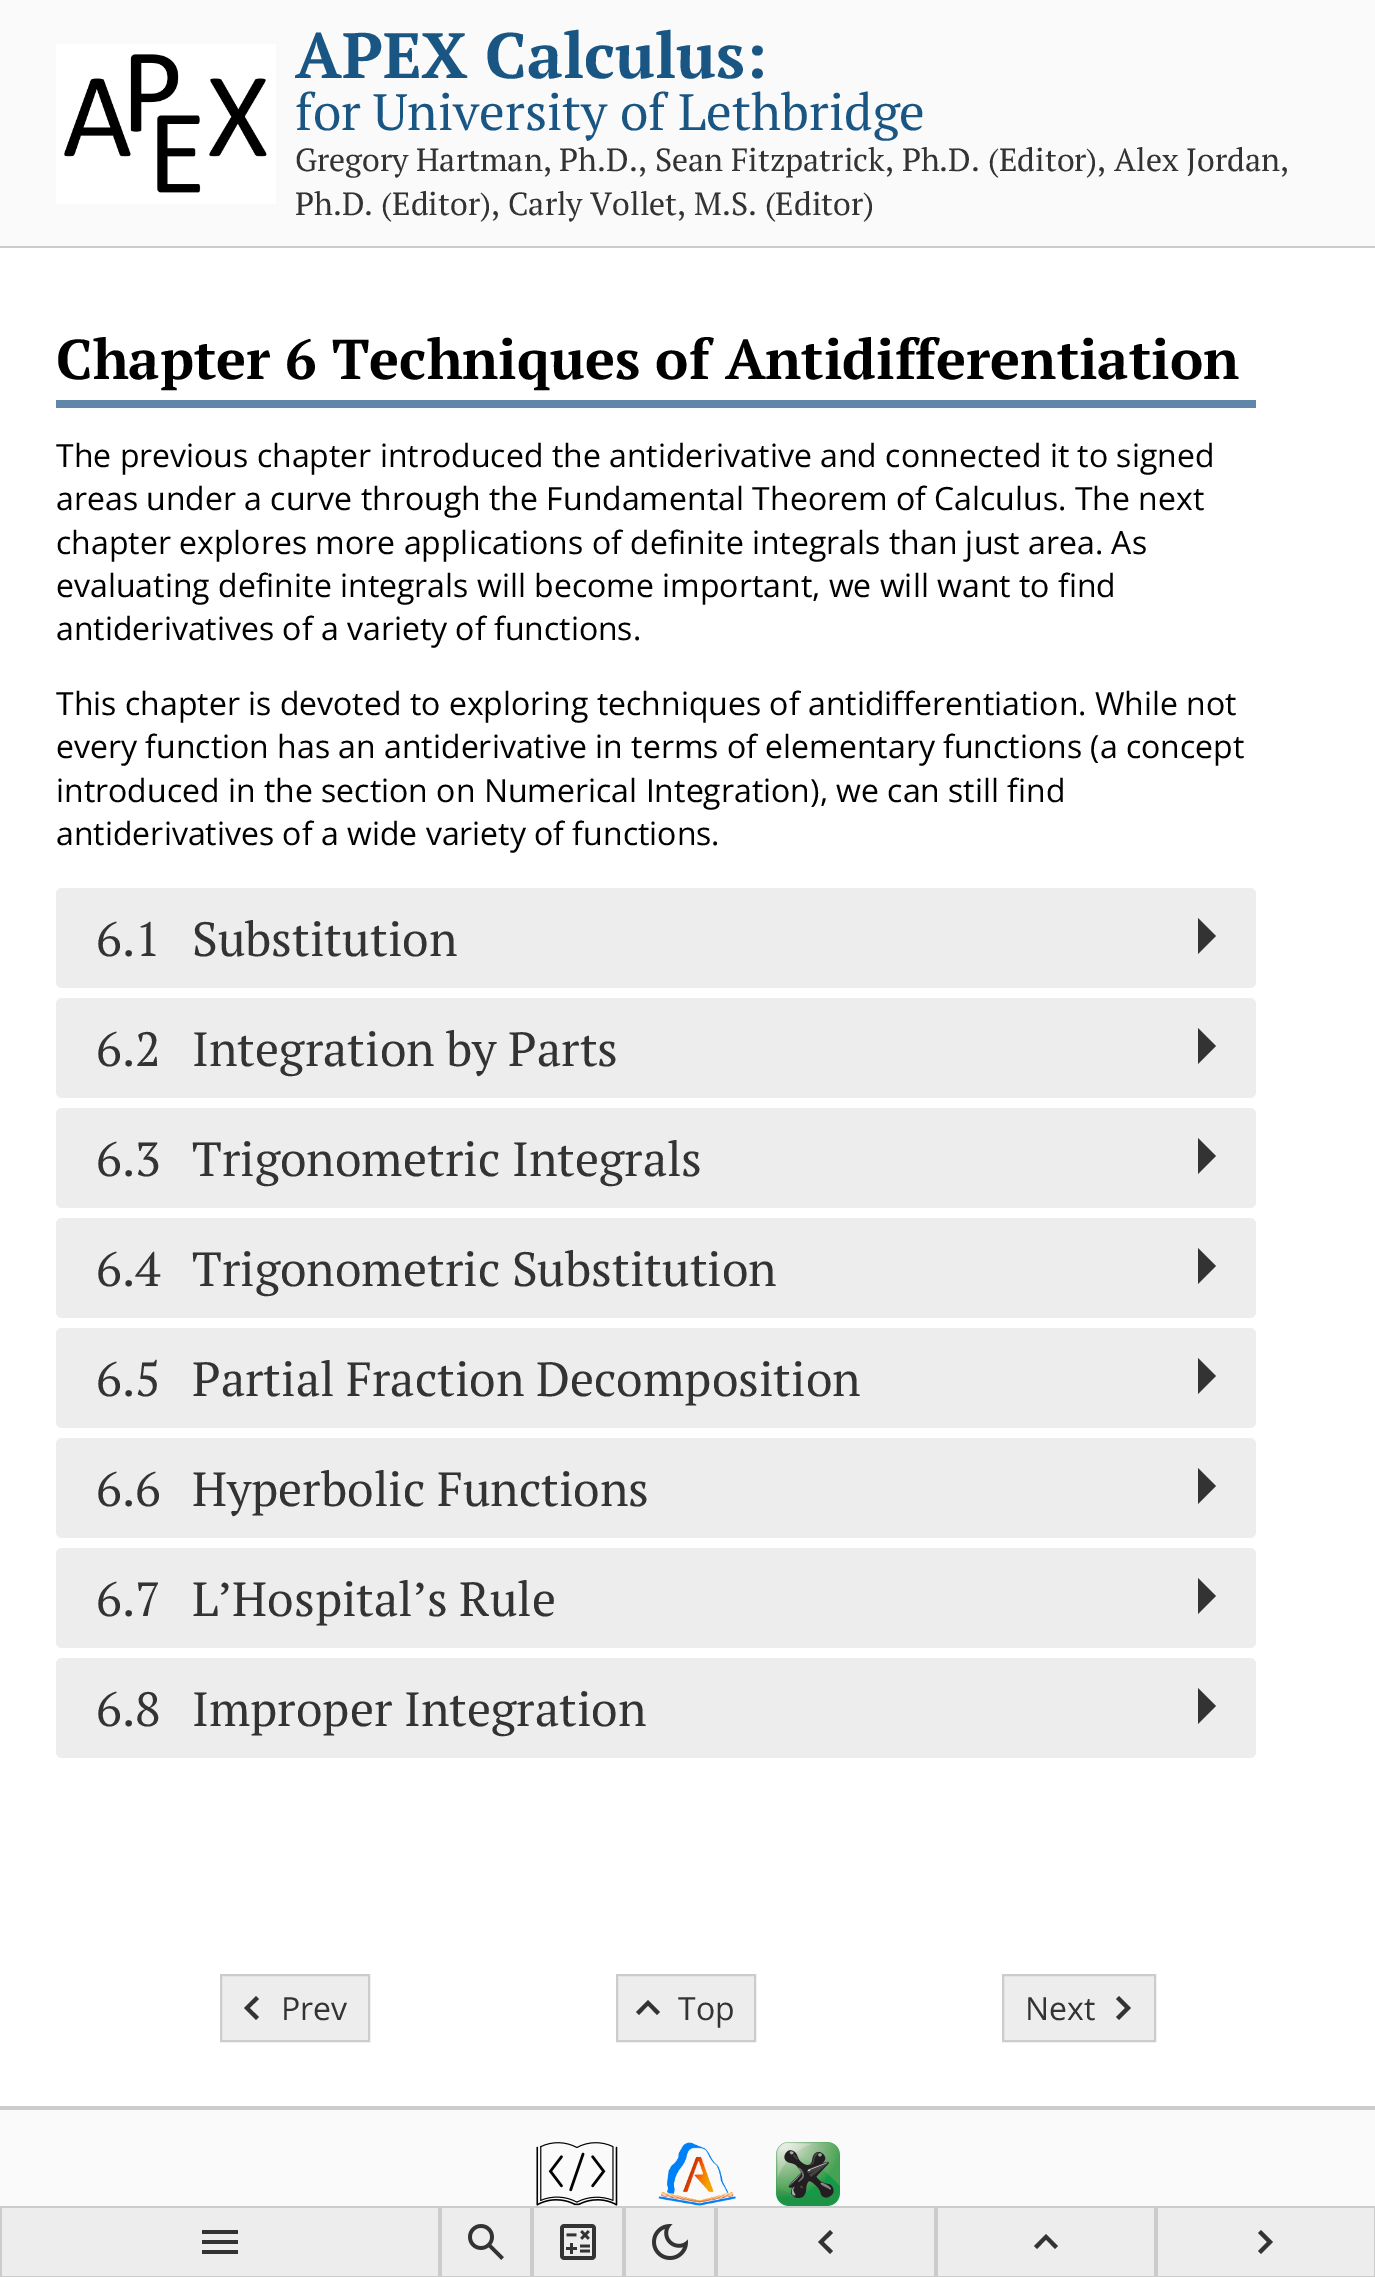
%!PS-Adobe-3.0
%%BoundingBox: 0 0 1375 2277
%%LanguageLevel: 3
%%Pages: 1
%%EndComments
%%BeginProlog
/rrect { 5 dict begin { /r /h /w /y /x } { exch def } forall
  x r add y moveto x w add y 2 copy h add r arct x w add y h add x 1 index r arct
  x y h add x y r arct x y 2 copy exch w add exch r arct closepath end } def
/drawimage { 5 dict begin { /h /w /y /x /name } { exch def } forall
  gsave x y translate w h scale
  w h 8 [w 0 0 h 0 0] name (r) file false 3 colorimage grestore end } def
%%EndProlog
%%BeginSetup
<< /PageSize [1375 2277] >> setpagedevice
%%EndSetup
%%Page: 1 1
0 2277 translate 1 -1 scale
4 setmiterlimit
1 setgray
0 0 1375 2277 rectfill
0.98 setgray
0 0 1375 246 rectfill
0.8 setgray
0 246 1375 2 rectfill
(images/1.raw) 56 44 220 160 drawimage
0.376 0.529 0.663 setrgbcolor
56 400 1200 8 rectfill
0.929 setgray
56 888 1200 100 6 rrect fill
0.2 setgray
newpath 1198 954 moveto 1198 918 lineto 1216 936 lineto closepath fill
0.929 setgray
56 998 1200 100 6 rrect fill
0.2 setgray
newpath 1198 1064 moveto 1198 1028 lineto 1216 1046 lineto closepath fill
0.929 setgray
56 1108 1200 100 6 rrect fill
0.2 setgray
newpath 1198 1174 moveto 1198 1138 lineto 1216 1156 lineto closepath fill
0.929 setgray
56 1218 1200 100 6 rrect fill
0.2 setgray
newpath 1198 1284 moveto 1198 1248 lineto 1216 1266 lineto closepath fill
0.929 setgray
56 1328 1200 100 6 rrect fill
0.2 setgray
newpath 1198 1394 moveto 1198 1358 lineto 1216 1376 lineto closepath fill
0.929 setgray
56 1438 1200 100 6 rrect fill
0.2 setgray
newpath 1198 1504 moveto 1198 1468 lineto 1216 1486 lineto closepath fill
0.929 setgray
56 1548 1200 100 6 rrect fill
0.2 setgray
newpath 1198 1614 moveto 1198 1578 lineto 1216 1596 lineto closepath fill
0.929 setgray
56 1658 1200 100 6 rrect fill
0.2 setgray
newpath 1198 1724 moveto 1198 1688 lineto 1216 1706 lineto closepath fill
0.929 setgray
newpath 221 1975 moveto 369 1975 lineto 369 2041 lineto 221 2041 lineto closepath gsave fill grestore
0.8 setgray
2 setlinewidth
stroke
0.2 setgray
newpath 256 2020 moveto 244 2008 lineto 256 1996 lineto 259 1999 lineto 249.5 2008 lineto 259 2017 lineto closepath fill
0.929 setgray
newpath 617 1975 moveto 755 1975 lineto 755 2041 lineto 617 2041 lineto closepath gsave fill grestore
0.8 setgray
stroke
0.2 setgray
newpath 639 2015 moveto 636 2012 lineto 648 2000 lineto 660 2012 lineto 657 2015 lineto 648 2005.5 lineto closepath fill
0.929 setgray
newpath 1003 1975 moveto 1155 1975 lineto 1155 2041 lineto 1003 2041 lineto closepath gsave fill grestore
0.8 setgray
stroke
0.2 setgray
newpath 1125 2008 moveto 1116 1999 lineto 1119 1996 lineto 1131 2008 lineto 1119 2020 lineto 1116 2017 lineto closepath fill
0.98 setgray
0 2110 1375 96 rectfill
0.8 setgray
0 2106 1375 4 rectfill
(images/2.raw) 536 2142 82 64 drawimage
(images/3.raw) 658 2142 78 64 drawimage
(images/4.raw) 776 2142 64 64 drawimage
0 2206 1375 71 rectfill
0.929 setgray
2 2208 436 68 rectfill
0.2 setgray
newpath 202 2254 moveto 202 2250 lineto 238 2250 lineto 238 2254 lineto closepath 202 2244 moveto 202 2240 lineto 238 2240 lineto 238 2244 lineto closepath 202 2234 moveto 202 2230 lineto 238 2230 lineto 238 2234 lineto closepath fill
0.929 setgray
442 2208 88 68 rectfill
(images/5.raw) 468 2224 36 36 drawimage
534 2208 88 68 rectfill
(images/6.raw) 560 2224 36 36 drawimage
626 2208 88 68 rectfill
(images/7.raw) 652 2224 36 36 drawimage
718 2208 216 68 rectfill
0.2 setgray
newpath 830 2254 moveto 818 2242 lineto 830 2230 lineto 833 2233 lineto 823.5 2242 lineto 833 2251 lineto closepath fill
0.929 setgray
938 2208 216 68 rectfill
0.2 setgray
newpath 1037 2249 moveto 1034 2246 lineto 1046 2234 lineto 1058 2246 lineto 1055 2249 lineto 1046 2239.5 lineto closepath fill
0.929 setgray
1158 2208 216 68 rectfill
0.2 setgray
newpath 1267 2242 moveto 1258 2233 lineto 1261 2230 lineto 1273 2242 lineto 1261 2254 lineto 1258 2251 lineto closepath fill
/PTSerif-Bold [64 0 0 -64 0 0] selectfont
0.098 0.337 0.518 setrgbcolor
295 78 moveto (APEX Calculus:) show
/PTSerif-Regular [51.25 0 0 -51.25 0 0] selectfont
295 130 moveto (for University of Lethbridge) show
/PTSerif-Regular [32 0 0 -32 0 0] selectfont
0.2 setgray
295 171 moveto (Gregory Hartman, Ph.D., Sean Fitzpatrick, Ph.D. \(Editor\), Alex Jordan,) show
295 215 moveto (Ph.D. \(Editor\), Carly Vollet, M.S. \(Editor\)) show
/PTSerif-Bold [56 0 0 -56 0 0] selectfont
0 setgray
56 379 moveto (Chapter 6 Techniques of Antidifferentiation) show
/OpenSans-Regular [32 0 0 -32 0 0] selectfont
56 467 moveto (The previous chapter introduced the antiderivative and connected it to signed) show
56 510 moveto (areas under a curve through the Fundamental Theorem of Calculus. The next) show
56 554 moveto (chapter explores more applications of definite integrals than just area. As) show
56 597 moveto (evaluating definite integrals will become important, we will want to find) show
56 640 moveto (antiderivatives of a variety of functions.) show
56 715 moveto (This chapter is devoted to exploring techniques of antidifferentiation. While not) show
56 758 moveto (every function has an antiderivative in terms of elementary functions \(a concept) show
56 802 moveto (introduced in the section on Numerical Integration\), we can still find) show
56 845 moveto (antiderivatives of a wide variety of functions.) show
/PTSerif-Regular [48 0 0 -48 0 0] selectfont
0.2 setgray
96 956 moveto (6.1) show
192 956 moveto (Substitution) show
96 1066 moveto (6.2) show
192 1066 moveto (Integration by Parts) show
96 1176 moveto (6.3) show
192 1176 moveto (Trigonometric Integrals) show
96 1286 moveto (6.4) show
192 1286 moveto (Trigonometric Substitution) show
96 1396 moveto (6.5) show
192 1396 moveto (Partial Fraction Decomposition) show
96 1506 moveto (6.6) show
192 1506 moveto (Hyperbolic Functions) show
96 1616 moveto (6.7) show
192 1616 moveto (L’Hospital’s Rule) show
96 1726 moveto (6.8) show
192 1726 moveto (Improper Integration) show
/OpenSans-Regular [32 0 0 -32 0 0] selectfont
281 2020 moveto (Prev) show
678 2020 moveto (Top) show
1025 2020 moveto (Next) show
showpage
%%EOF
